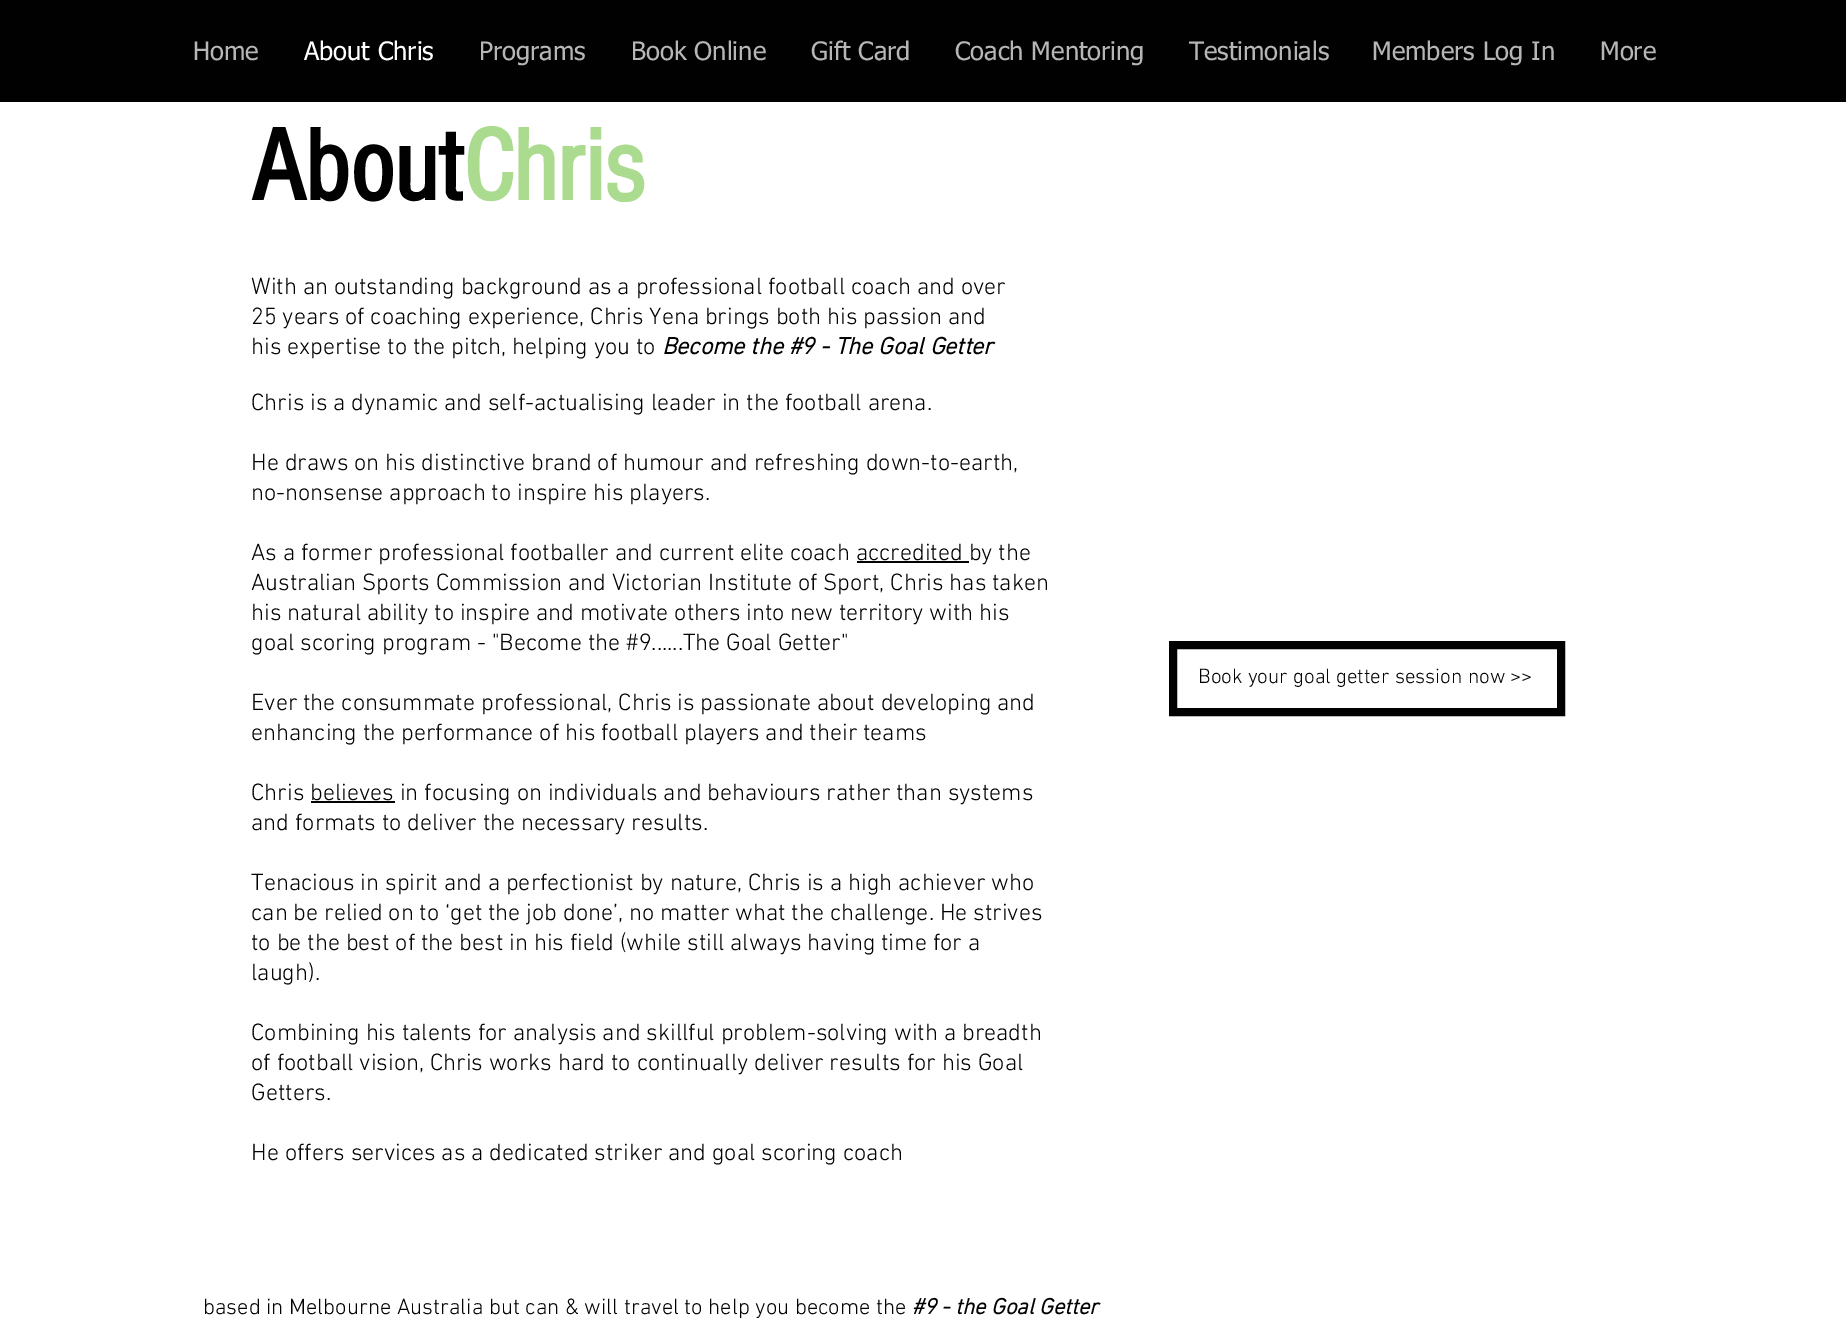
%!PS-Adobe-3.0
%%BoundingBox: 0 0 1846 1321
%%LanguageLevel: 3
%%Pages: 1
%%EndComments
%%BeginProlog
%%EndProlog
%%BeginSetup
<< /PageSize [1846 1321] >> setpagedevice
%%EndSetup
%%Page: 1 1
0 1321 translate 1 -1 scale
4 setmiterlimit
1 setgray
0 0 1846 1321 rectfill
0.004 setgray
0 0 1846 102 rectfill
857 561 112 2 rectfill
311 801 84 2 rectfill
8 setlinewidth
1173 645 388 67 rectstroke
/tahoma-Regular [25.5 0 0 -25.5 0 0] selectfont
0.718 0.714 0.714 setrgbcolor
193 60 moveto (Home) show
0.996 1 1 setrgbcolor
304 60 moveto (About Chris) show
0.718 0.714 0.714 setrgbcolor
479 60 moveto (Programs) show
631 60 moveto (Book Online) show
811 60 moveto (Gift Card) show
955 60 moveto (Coach Mentoring) show
1189 60 moveto (Testimonials) show
1372 60 moveto (Members Log In) show
1600 60 moveto (More) show
/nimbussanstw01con-Bold [105 0 0 -105 0 0] selectfont
0.004 setgray
251 200 moveto (About) show
0.671 0.859 0.561 setrgbcolor
463 200 moveto (Chris) show
/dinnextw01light-Light [24 0 0 -24 0 0] selectfont
0.004 setgray
251 294 moveto (With an outstanding background as a professional football coach and over) show
251 324 moveto (25 years of coaching experience, Chris Yena brings both his passion and) show
251 354 moveto (his expertise to the pitch, helping you to) show
/dinnextw01light-BoldItalic [24 0 0 -24 0 0] selectfont
662 354 moveto (Become the #9 - The Goal Getter) show
/dinnextw01light-Light [24 0 0 -24 0 0] selectfont
251 410 moveto (Chris is a dynamic and self-actualising leader in the football arena.) show
251 470 moveto (He draws on his distinctive brand of humour and refreshing down-to-earth,) show
251 500 moveto (no-nonsense approach to inspire his players.) show
251 560 moveto (As a former professional footballer and current elite coach accredited by the) show
251 590 moveto (Australian Sports Commission and Victorian Institute of Sport, Chris has taken) show
251 620 moveto (his natural ability to inspire and motivate others into new territory with his) show
251 650 moveto (goal scoring program - "Become the #9......The Goal Getter") show
251 710 moveto (Ever the consummate professional, Chris is passionate about developing and) show
251 740 moveto (enhancing the performance of his football players and their teams) show
251 800 moveto (Chris believes in focusing on individuals and behaviours rather than systems) show
251 830 moveto (and formats to deliver the necessary results.) show
251 890 moveto (Tenacious in spirit and a perfectionist by nature, Chris is a high achiever who) show
251 920 moveto (can be relied on to ‘get the job done’, no matter what the challenge. He strives) show
251 950 moveto (to be the best of the best in his field \(while still always having time for a) show
251 980 moveto (laugh\).) show
251 1040 moveto (Combining his talents for analysis and skillful problem-solving with a breadth) show
251 1070 moveto (of football vision, Chris works hard to continually deliver results for his Goal) show
251 1100 moveto (Getters.) show
251 1160 moveto (He offers services as a dedicated striker and goal scoring coach) show
/dinnextw01light-Light [21 0 0 -21 0 0] selectfont
1198 683 moveto (Book your goal getter session now >>) show
/dinnextw01light-Light [22.5 0 0 -22.5 0 0] selectfont
203 1314 moveto (based in Melbourne Australia but can & will travel to help you become the) show
/dinnextw01light-BoldItalic [22.5 0 0 -22.5 0 0] selectfont
912 1314 moveto (#9 - the Goal Getter) show
showpage
%%EOF
